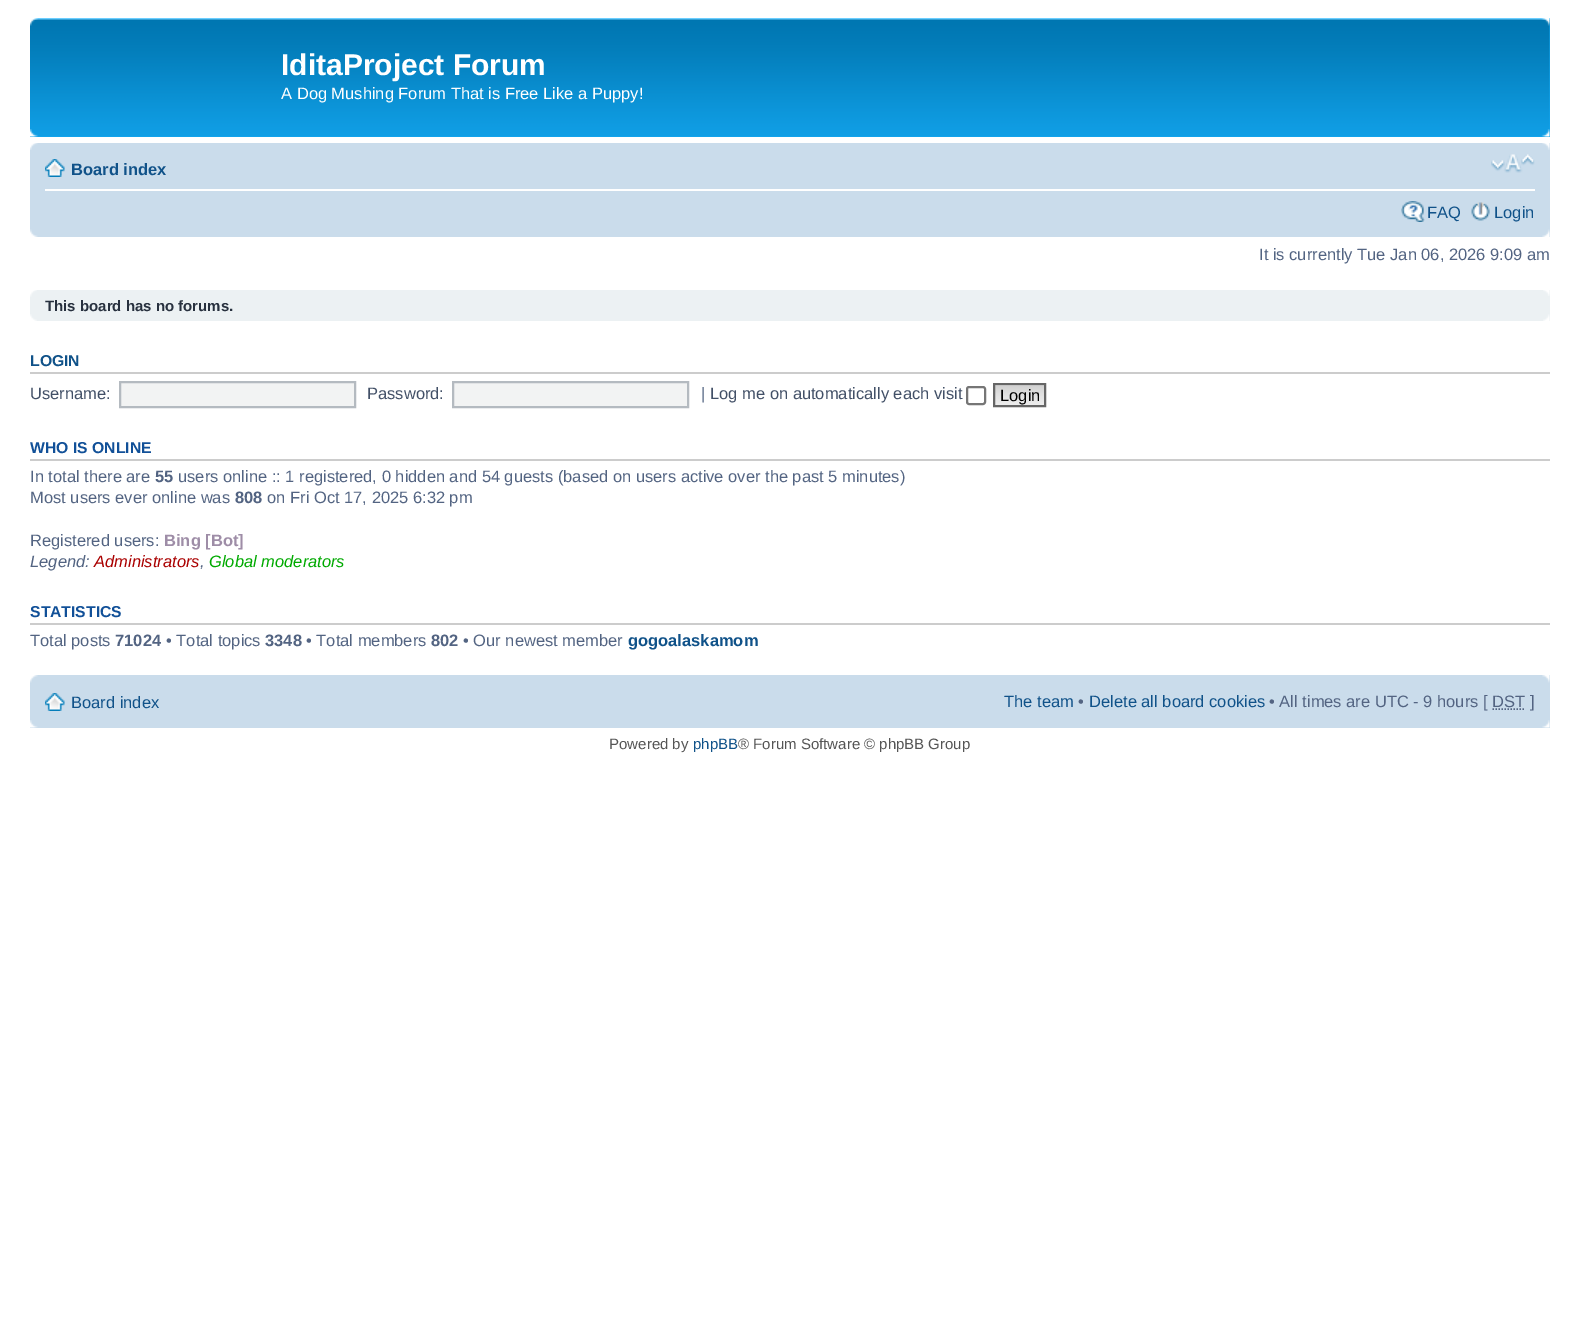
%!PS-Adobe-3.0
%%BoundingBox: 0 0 1579 1334
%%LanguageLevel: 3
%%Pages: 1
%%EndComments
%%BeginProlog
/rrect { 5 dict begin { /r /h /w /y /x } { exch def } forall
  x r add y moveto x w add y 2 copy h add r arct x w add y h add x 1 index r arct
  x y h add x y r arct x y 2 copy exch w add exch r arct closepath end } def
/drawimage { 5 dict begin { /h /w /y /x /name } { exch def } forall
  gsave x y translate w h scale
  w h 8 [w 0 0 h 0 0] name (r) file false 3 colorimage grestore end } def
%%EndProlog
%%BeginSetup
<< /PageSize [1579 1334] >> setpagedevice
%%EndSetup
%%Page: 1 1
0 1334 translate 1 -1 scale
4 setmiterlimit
1 setgray
0 0 1579 1334 rectfill
0.071 0.639 0.922 setrgbcolor
30 18 1520 119 rectfill
(images/1.raw) 30 18 1520 118 drawimage
(images/2.raw) 30 18 8 8 drawimage
(images/3.raw) 1541 18 9 8 drawimage
(images/4.raw) 30 129 8 8 drawimage
(images/5.raw) 1541 129 9 8 drawimage
0.792 0.863 0.922 setrgbcolor
30 143 1520 94 rectfill
(images/6.raw) 30 143 8 7 drawimage
(images/7.raw) 1542 143 8 7 drawimage
1 setgray
45 189 1490 2 rectfill
(images/8.raw) 45 159 20 18 drawimage
(images/9.raw) 1491 154 44 19 drawimage
(images/10.raw) 1401 201 24 21 drawimage
(images/11.raw) 1471 202 19 19 drawimage
(images/12.raw) 30 229 8 8 drawimage
(images/13.raw) 1542 229 8 8 drawimage
0.925 0.945 0.953 setrgbcolor
30 290 1520 31 rectfill
(images/14.raw) 30 290 7 7 drawimage
(images/15.raw) 1543 290 7 6 drawimage
(images/16.raw) 30 314 7 7 drawimage
(images/17.raw) 1543 314 7 7 drawimage
0.8 setgray
30 372 1520 2 rectfill
0.949 0.953 0.953 setrgbcolor
newpath 120 382 moveto 355 382 lineto 355 407 lineto 120 407 lineto closepath gsave fill grestore
0.706 0.729 0.753 setrgbcolor
2 setlinewidth
stroke
0.949 0.953 0.953 setrgbcolor
newpath 453 382 moveto 688 382 lineto 688 407 lineto 453 407 lineto closepath gsave fill grestore
0.706 0.729 0.753 setrgbcolor
stroke
0.463 setgray
967 387 18 17 2 rrect stroke
(images/18.raw) 995 385 49 20 drawimage
0.4 setgray
994 384 51 22 rectstroke
0.8 setgray
30 459 1520 2 rectfill
30 623 1520 2 rectfill
0.792 0.863 0.922 setrgbcolor
30 675 1520 53 rectfill
(images/19.raw) 30 675 8 8 drawimage
(images/20.raw) 1542 675 8 8 drawimage
(images/8.raw) 45 693 20 18 drawimage
0.325 0.392 0.51 setrgbcolor
1.5 setlinewidth
[1.5 1.5] 0 setdash
newpath 1492.5 709 moveto 1525.5 709 lineto stroke
(images/21.raw) 30 720 8 8 drawimage
(images/22.raw) 1542 720 8 8 drawimage
/LiberationSans-Bold [30 0 0 -30 0 0] selectfont
1 setgray
281 75 moveto (IditaProject Forum) show
/LiberationSans-Regular [16.5 0 0 -16.5 0 0] selectfont
281 99 moveto (A Dog Mushing Forum That is Free Like a Puppy!) show
/LiberationSans-Bold [16.5 0 0 -16.5 0 0] selectfont
0.063 0.322 0.537 setrgbcolor
71 175 moveto (Board index) show
/LiberationSans-Regular [16.5 0 0 -16.5 0 0] selectfont
1427 218 moveto (FAQ) show
1494 218 moveto (Login) show
0.325 0.392 0.51 setrgbcolor
1259 260 moveto (It is currently Tue Jan 06, 2026 9:09 am) show
/LiberationSans-Bold [15 0 0 -15 0 0] selectfont
0.157 0.192 0.247 setrgbcolor
45 311 moveto (This board has no forums.) show
/LiberationSans-Bold [15.75 0 0 -15.75 0 0] selectfont
0.063 0.322 0.537 setrgbcolor
30 366 moveto (LOGIN) show
/LiberationSans-Regular [16.5 0 0 -16.5 0 0] selectfont
0.259 0.314 0.404 setrgbcolor
30 399 moveto (Username:) show
367 399 moveto (Password:) show
0.325 0.392 0.51 setrgbcolor
701 399 moveto (|) show
0.259 0.314 0.404 setrgbcolor
710 399 moveto (Log me on automatically each visit) show
0 setgray
1000 401 moveto (Login) show
/LiberationSans-Bold [15.75 0 0 -15.75 0 0] selectfont
0.067 0.314 0.596 setrgbcolor
30 453 moveto (WHO IS ONLINE) show
/LiberationSans-Regular [16.5 0 0 -16.5 0 0] selectfont
0.325 0.392 0.51 setrgbcolor
30 482 moveto (In total there are) show
/LiberationSans-Bold [16.5 0 0 -16.5 0 0] selectfont
155 482 moveto (55) show
/LiberationSans-Regular [16.5 0 0 -16.5 0 0] selectfont
178 482 moveto (users online :: 1 registered, 0 hidden and 54 guests \(based on users active over the past 5 minutes\)) show
30 503 moveto (Most users ever online was) show
/LiberationSans-Bold [16.5 0 0 -16.5 0 0] selectfont
235 503 moveto (808) show
/LiberationSans-Regular [16.5 0 0 -16.5 0 0] selectfont
267 503 moveto (on Fri Oct 17, 2025 6:32 pm) show
30 546 moveto (Registered users:) show
/LiberationSans-Bold [16.5 0 0 -16.5 0 0] selectfont
0.62 0.553 0.655 setrgbcolor
164 546 moveto (Bing [Bot]) show
/LiberationSans-Italic [16.5 0 0 -16.5 0 0] selectfont
0.325 0.392 0.51 setrgbcolor
30 567 moveto (Legend:) show
0.667 0 0 setrgbcolor
94 567 moveto (Administrators) show
0.325 0.392 0.51 setrgbcolor
200 567 moveto (,) show
0 0.667 0 setrgbcolor
209 567 moveto (Global moderators) show
/LiberationSans-Bold [15.75 0 0 -15.75 0 0] selectfont
0.067 0.314 0.596 setrgbcolor
30 617 moveto (STATISTICS) show
/LiberationSans-Regular [16.5 0 0 -16.5 0 0] selectfont
0.325 0.392 0.51 setrgbcolor
30 646 moveto (Total posts) show
/LiberationSans-Bold [16.5 0 0 -16.5 0 0] selectfont
115 646 moveto (71024) show
/LiberationSans-Regular [16.5 0 0 -16.5 0 0] selectfont
166 646 moveto (• Total topics) show
/LiberationSans-Bold [16.5 0 0 -16.5 0 0] selectfont
265 646 moveto (3348) show
/LiberationSans-Regular [16.5 0 0 -16.5 0 0] selectfont
306 646 moveto (• Total members) show
/LiberationSans-Bold [16.5 0 0 -16.5 0 0] selectfont
431 646 moveto (802) show
/LiberationSans-Regular [16.5 0 0 -16.5 0 0] selectfont
463 646 moveto (• Our newest member) show
/LiberationSans-Bold [16.5 0 0 -16.5 0 0] selectfont
0.063 0.322 0.537 setrgbcolor
628 646 moveto (gogoalaskamom) show
/LiberationSans-Regular [16.5 0 0 -16.5 0 0] selectfont
71 708 moveto (Board index) show
1004 707 moveto (The team) show
0.325 0.392 0.51 setrgbcolor
1078 707 moveto (•) show
0.063 0.322 0.537 setrgbcolor
1089 707 moveto (Delete all board cookies) show
0.325 0.392 0.51 setrgbcolor
1269 707 moveto (• All times are UTC - 9 hours [ DST ]) show
/LiberationSans-Regular [15 0 0 -15 0 0] selectfont
0.333 setgray
609 749 moveto (Powered by) show
0.063 0.322 0.537 setrgbcolor
693 749 moveto (phpBB) show
0.333 setgray
738 749 moveto (® Forum Software © phpBB Group) show
showpage
%%EOF
